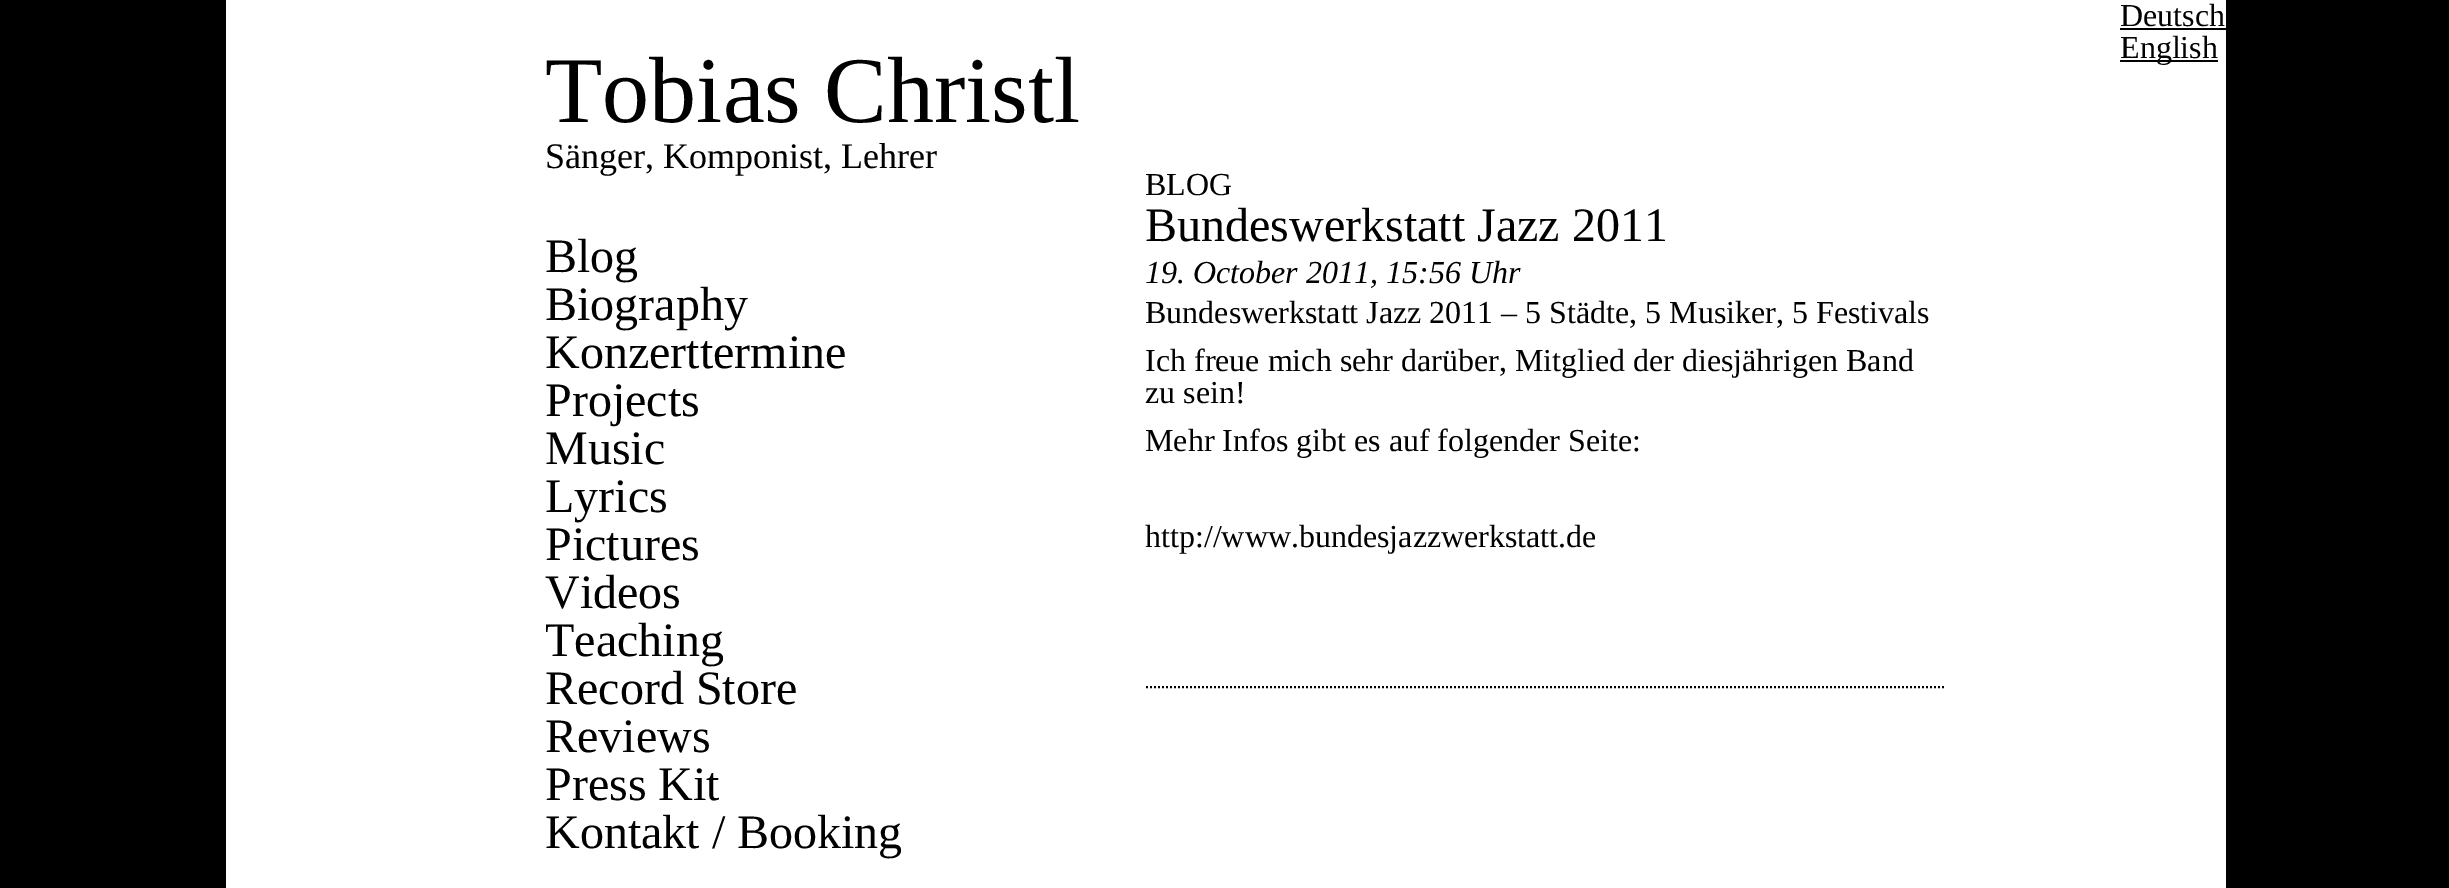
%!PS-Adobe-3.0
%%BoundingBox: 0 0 2449 888
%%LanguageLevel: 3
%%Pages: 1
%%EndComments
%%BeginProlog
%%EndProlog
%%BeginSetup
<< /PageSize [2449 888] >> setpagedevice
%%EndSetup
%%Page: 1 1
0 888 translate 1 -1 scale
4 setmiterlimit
0 setgray
0 0 2449 888 rectfill
1 setgray
226 0 2000 888 rectfill
0 setgray
2120 28 106 2 rectfill
2120 60 98 2 rectfill
2 setlinewidth
[2 2] 0 setdash
newpath 1146 687 moveto 1946 687 lineto stroke
/LiberationSerif-Regular [32 0 0 -32 0 0] selectfont
2120 26 moveto (Deutsch) show
2120 58 moveto (English) show
/LiberationSerif-Regular [94 0 0 -94 0 0] selectfont
545 122 moveto (Tobias Christl) show
/LiberationSerif-Regular [36 0 0 -36 0 0] selectfont
545 168 moveto (Sänger, Komponist, Lehrer) show
/LiberationSerif-Regular [48 0 0 -48 0 0] selectfont
545 272 moveto (Blog) show
545 320 moveto (Biography) show
545 368 moveto (Konzerttermine) show
545 416 moveto (Projects) show
545 464 moveto (Music) show
545 512 moveto (Lyrics) show
545 560 moveto (Pictures) show
545 608 moveto (Videos) show
545 656 moveto (Teaching) show
545 704 moveto (Record Store) show
545 752 moveto (Reviews) show
545 800 moveto (Press Kit) show
545 848 moveto (Kontakt / Booking) show
/LiberationSerif-Regular [32 0 0 -32 0 0] selectfont
1145 195 moveto (BLOG) show
/LiberationSerif-Regular [48 0 0 -48 0 0] selectfont
1145 241 moveto (Bundeswerkstatt Jazz 2011) show
/LiberationSerif-Italic [32 0 0 -32 0 0] selectfont
1145 283 moveto (19. October 2011, 15:56 Uhr) show
/LiberationSerif-Regular [32 0 0 -32 0 0] selectfont
1145 323 moveto (Bundeswerkstatt Jazz 2011 – 5 Städte, 5 Musiker, 5 Festivals) show
1145 371 moveto (Ich freue mich sehr darüber, Mitglied der diesjährigen Band) show
1145 403 moveto (zu sein!) show
1145 451 moveto (Mehr Infos gibt es auf folgender Seite:) show
1145 547 moveto (http://www.bundesjazzwerkstatt.de) show
showpage
%%EOF
